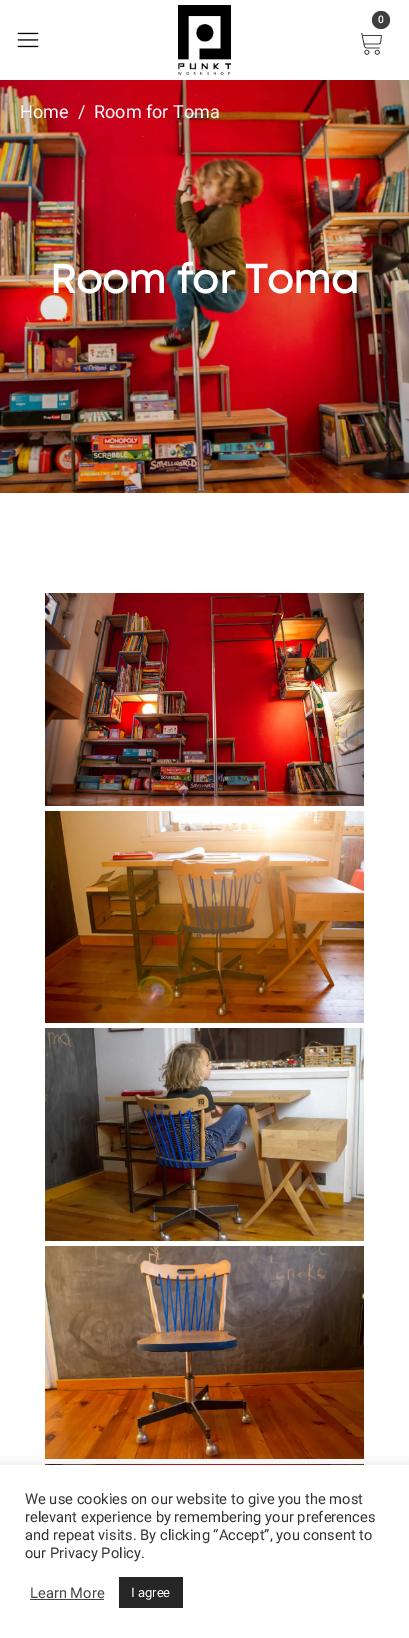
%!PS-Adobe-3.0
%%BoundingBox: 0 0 409 1638
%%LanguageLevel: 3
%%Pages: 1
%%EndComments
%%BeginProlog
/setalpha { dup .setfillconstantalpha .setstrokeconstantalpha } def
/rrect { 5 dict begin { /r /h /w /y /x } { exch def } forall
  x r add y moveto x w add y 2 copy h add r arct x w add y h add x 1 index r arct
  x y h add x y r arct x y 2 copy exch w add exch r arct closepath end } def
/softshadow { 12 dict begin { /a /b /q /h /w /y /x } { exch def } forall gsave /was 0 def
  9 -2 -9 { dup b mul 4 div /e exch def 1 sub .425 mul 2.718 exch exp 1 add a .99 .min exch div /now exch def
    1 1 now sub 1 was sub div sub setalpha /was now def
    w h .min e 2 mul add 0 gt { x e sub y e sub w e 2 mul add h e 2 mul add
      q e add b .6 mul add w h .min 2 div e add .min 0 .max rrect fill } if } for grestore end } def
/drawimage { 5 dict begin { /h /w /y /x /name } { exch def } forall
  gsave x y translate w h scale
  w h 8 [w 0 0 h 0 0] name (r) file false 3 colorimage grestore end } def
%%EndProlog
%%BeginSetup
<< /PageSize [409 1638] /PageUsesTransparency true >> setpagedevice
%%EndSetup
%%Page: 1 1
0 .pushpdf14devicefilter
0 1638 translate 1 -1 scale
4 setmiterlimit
1 setgray
0 0 409 1638 rectfill
(images/1.raw) 178 5 53 70 drawimage
0.243 setgray
newpath 381 20 9 0 360 arc closepath fill
(images/2.raw) 361 33 21 22 drawimage
(images/3.raw) 17 32 22 16 drawimage
(images/4.raw) 0 80 409 413 drawimage
(images/5.raw) 45 593 319 213 drawimage
(images/6.raw) 45 811 319 212 drawimage
(images/7.raw) 45 1028 319 213 drawimage
(images/8.raw) 45 1246 319 213 drawimage
(images/9.raw) 45 1464 319 1 drawimage
0.675 0.671 0.671 setrgbcolor
0 1464 409 173 0 5 0.3 softshadow
1 setgray
0 1465 409 173 rectfill
0.267 setgray
30 1599 74 1 rectfill
0.149 setgray
119 1577 64 31 rectfill
/Roboto-Bold [10 0 0 -10 0 0] selectfont
1 setgray
378 23 moveto (0) show
/Roboto-Regular [18 0 0 -18 0 0] selectfont
20 118 moveto (Home) show
78 118 moveto (/) show
94 118 moveto (Room for Toma) show
/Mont-Bold [40 0 0 -40 0 0] selectfont
50 293 moveto (Room for Toma) show
/Roboto-Regular [14.7 0 0 -14.7 0 0] selectfont
0.2 setgray
25 1504 moveto (We use cookies on our website to give you the most) show
25 1522 moveto (relevant experience by remembering your preferences) show
25 1540 moveto (and repeat visits. By clicking “Accept”, you consent to) show
25 1558 moveto (our Privacy Policy.) show
0.267 setgray
30 1598 moveto (Learn More) show
/Roboto-Regular [13 0 0 -13 0 0] selectfont
1 setgray
131 1597 moveto (I agree) show
.poppdf14devicefilter showpage
%%EOF
